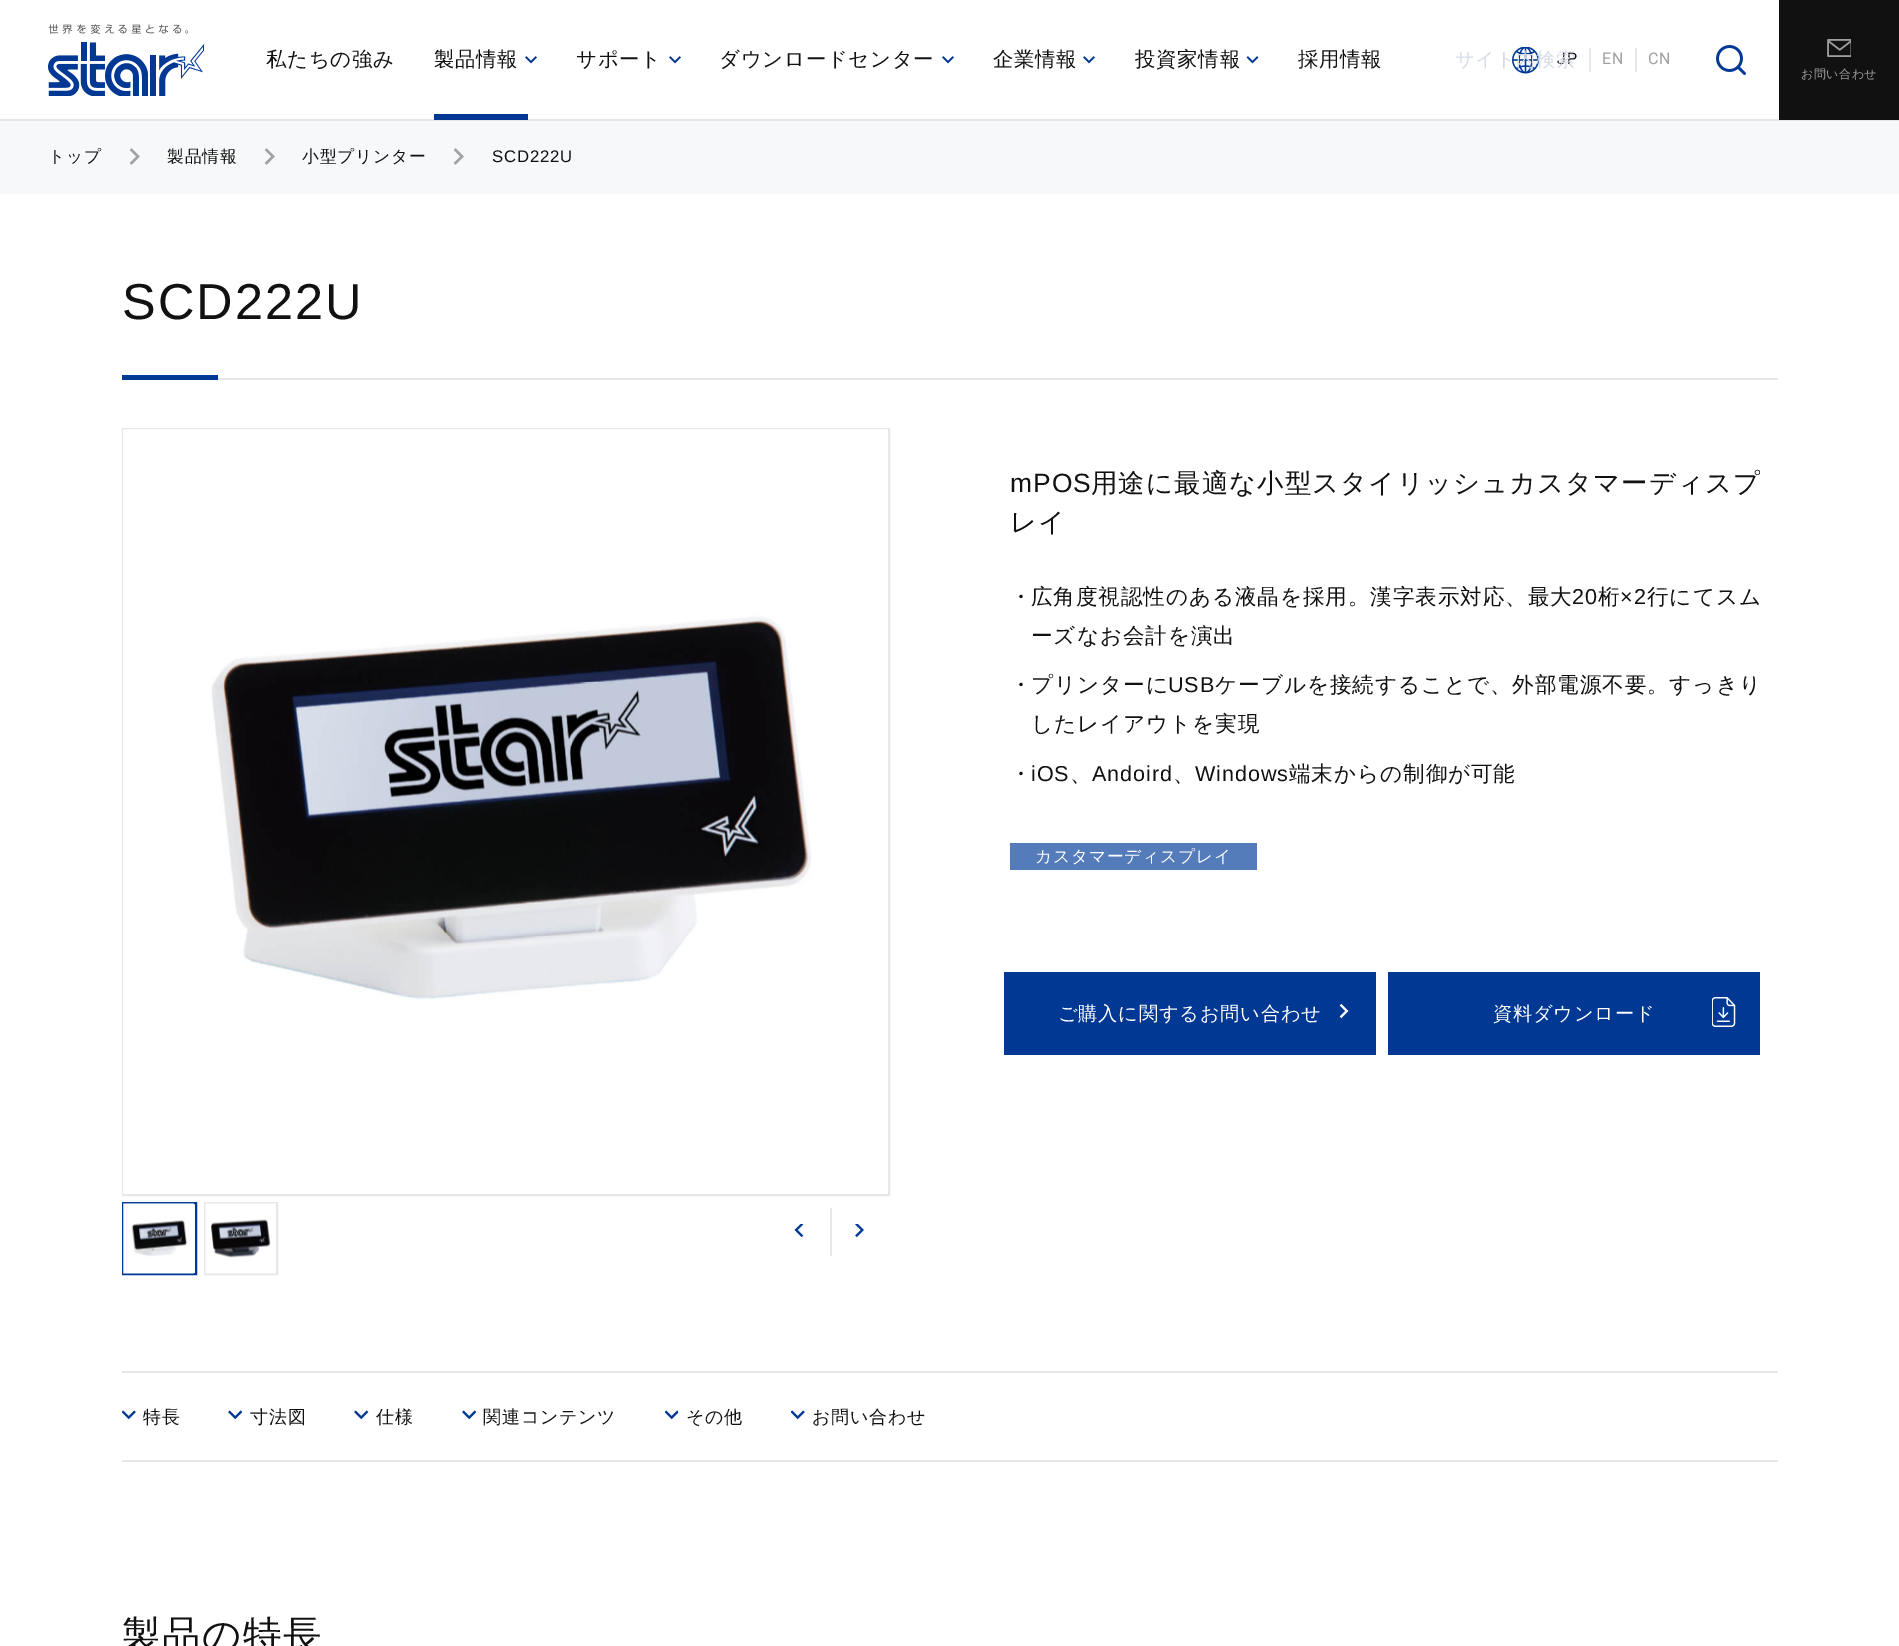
%!PS-Adobe-3.0
%%BoundingBox: 0 0 1899 1646
%%LanguageLevel: 3
%%Pages: 1
%%EndComments
%%BeginProlog
/drawimage { 5 dict begin { /h /w /y /x /name } { exch def } forall
  gsave x y translate w h scale
  w h 8 [w 0 0 h 0 0] name (r) file false 3 colorimage grestore end } def
%%EndProlog
%%BeginSetup
<< /PageSize [1899 1646] >> setpagedevice
%%EndSetup
%%Page: 1 1
0 1646 translate 1 -1 scale
4 setmiterlimit
1 setgray
0 0 1899 1646 rectfill
(images/1.raw) 48 24 156 72 drawimage
(images/2.raw) 525 56 12 8 drawimage
0.906 setgray
0 119 1899 2 rectfill
0 0.22 0.58 setrgbcolor
434 114 94 6 rectfill
(images/2.raw) 669 56 12 8 drawimage
(images/2.raw) 942 56 12 8 drawimage
(images/2.raw) 1083 56 12 8 drawimage
(images/3.raw) 1246 56 13 8 drawimage
(images/4.raw) 1716 45 30 30 drawimage
(images/5.raw) 1512 47 27 27 drawimage
0.906 setgray
1589 48 2 24 rectfill
1635 48 2 24 rectfill
0.067 setgray
1779 0 120 120 rectfill
(images/6.raw) 1827 39 24 18 drawimage
0.969 0.973 0.976 setrgbcolor
0 121 1899 73 rectfill
(images/7.raw) 129 148 11 17 drawimage
(images/7.raw) 264 148 11 17 drawimage
(images/7.raw) 453 148 11 17 drawimage
0 0.22 0.58 setrgbcolor
122 375 96 5 rectfill
0.906 setgray
218 378 1560 2 rectfill
2 setlinewidth
123 429 766 766 rectstroke
(images/8.raw) 123 429 765 765 drawimage
0 0.22 0.58 setrgbcolor
123 1203 73 71 rectstroke
(images/9.raw) 123 1202 71 72 drawimage
0.906 setgray
205 1203 72 71 rectstroke
(images/10.raw) 205 1203 71 71 drawimage
(images/11.raw) 794 1224 10 14 drawimage
830 1208 2 48 rectfill
(images/12.raw) 855 1224 9 14 drawimage
0.329 0.482 0.729 setrgbcolor
1010 843 247 27 rectfill
0 0.22 0.58 setrgbcolor
1004 972 372 83 rectfill
(images/13.raw) 1339 1004 10 15 drawimage
1388 972 372 83 rectfill
(images/14.raw) 1712 997 24 30 drawimage
0.906 setgray
122 1371 1656 2 rectfill
122 1460 1656 2 rectfill
(images/15.raw) 122 1410 14 10 drawimage
(images/16.raw) 228 1410 15 10 drawimage
(images/16.raw) 354 1410 15 10 drawimage
(images/17.raw) 462 1410 14 10 drawimage
(images/18.raw) 665 1410 13 10 drawimage
(images/15.raw) 791 1410 14 10 drawimage
/WenQuanYiZenHei-Medium [20.4 0 0 -20.4 0 0] selectfont
0.067 setgray
266 66 moveto 0.75 0 (私たちの強み) ashow
434 66 moveto 0.75 0 (製品情報) ashow
576 66 moveto 0.75 0 (サポート) ashow
719 66 moveto 0.75 0 (ダウンロードセンター) ashow
993 66 moveto 0.75 0 (企業情報) ashow
1135 66 moveto 0.75 0 (投資家情報) ashow
1298 66 moveto 0.75 0 (採用情報) ashow
/Roboto-Regular [16 0 0 -16 0 0] selectfont
1557 64 moveto 1 0 (JP) ashow
/WenQuanYiZenHei-Medium [19.25 0 0 -19.25 0 0] selectfont
0.839 0.863 0.906 setrgbcolor
1455 66 moveto 0.75 0 (サイト内検索) ashow
/Roboto-Regular [16 0 0 -16 0 0] selectfont
0.627 setgray
1602 64 moveto 1 0 (EN) ashow
1648 64 moveto 1 0 (CN) ashow
/WenQuanYiZenHei-Medium [12 0 0 -12 0 0] selectfont
1801 78 moveto 0.5 0 (お問い合わせ) ashow
/WenQuanYiZenHei-Medium [16.75 0 0 -16.75 0 0] selectfont
0.067 setgray
48 162 moveto 0.75 0 (トップ) ashow
167 162 moveto 0.75 0 (製品情報) ashow
302 162 moveto 0.75 0 (小型プリンター) ashow
/LiberationSans-Regular [16.75 0 0 -16.75 0 0] selectfont
492 162 moveto 0.75 0 (SCD222U) ashow
/LiberationSans-Regular [50.5 0 0 -50.5 0 0] selectfont
122 319 moveto 2 0 (SCD222U) ashow
/LiberationSans-Regular [26.4 0 0 -26.4 0 0] selectfont
1010 492 moveto 1.1 0 (mPOS) ashow
/WenQuanYiZenHei-Medium [26.4 0 0 -26.4 0 0] selectfont
1091 492 moveto 1.1 0 (用途に最適な小型スタイリッシュカスタマーディスプ) ashow
1010 531 moveto 1.1 0 (レイ) ashow
/WenQuanYiZenHei-Medium [21.6 0 0 -21.6 0 0] selectfont
1010 604 moveto 0.9 0 (・) ashow
1031 604 moveto 0.9 0 (広角度視認性のある液晶を採用。漢字表示対応、最大) ashow
/LiberationSans-Regular [21.6 0 0 -21.6 0 0] selectfont
1572 604 moveto 0.9 0 (20) ashow
/WenQuanYiZenHei-Medium [21.6 0 0 -21.6 0 0] selectfont
1598 604 moveto 0.9 0 (桁) ashow
/LiberationSans-Regular [21.6 0 0 -21.6 0 0] selectfont
1620 604 moveto 0.9 0 (×2) ashow
/WenQuanYiZenHei-Medium [21.6 0 0 -21.6 0 0] selectfont
1647 604 moveto 0.9 0 (行にてスム) ashow
1031 643 moveto 0.9 0 (ーズなお会計を演出) ashow
1010 692 moveto 0.9 0 (・) ashow
1031 692 moveto 0.9 0 (プリンターに) ashow
/LiberationSans-Regular [21.6 0 0 -21.6 0 0] selectfont
1168 692 moveto 0.9 0 (USB) ashow
/WenQuanYiZenHei-Medium [21.6 0 0 -21.6 0 0] selectfont
1215 692 moveto 0.9 0 (ケーブルを接続することで、外部電源不要。すっきり) ashow
1031 731 moveto 0.9 0 (したレイアウトを実現) ashow
1010 781 moveto 0.9 0 (・) ashow
/LiberationSans-Regular [21.6 0 0 -21.6 0 0] selectfont
1031 781 moveto 0.9 0 (iOS) ashow
1092 781 moveto 0.9 0 (Andoird) ashow
1195 781 moveto 0.9 0 (Windows) ashow
/WenQuanYiZenHei-Medium [21.6 0 0 -21.6 0 0] selectfont
1289 781 moveto 0.9 0 (端末からの制御が可能) ashow
1070 781 moveto 0.9 0 (、) ashow
1173 781 moveto 0.9 0 (、) ashow
/WenQuanYiZenHei-Medium [16.75 0 0 -16.75 0 0] selectfont
1 setgray
1035 862 moveto 0.75 0 (カスタマーディスプレイ) ashow
/WenQuanYiZenHei-Medium [19.25 0 0 -19.25 0 0] selectfont
1058 1020 moveto 0.75 0 (ご購入に関するお問い合わせ) ashow
1493 1020 moveto 0.75 0 (資料ダウンロード) ashow
/WenQuanYiZenHei-Medium [18 0 0 -18 0 0] selectfont
0.067 setgray
143 1423 moveto 0.75 0 (特長) ashow
250 1423 moveto 0.75 0 (寸法図) ashow
376 1423 moveto 0.75 0 (仕様) ashow
483 1423 moveto 0.75 0 (関連コンテンツ) ashow
686 1423 moveto 0.75 0 (その他) ashow
812 1423 moveto 0.75 0 (お問い合わせ) ashow
/WenQuanYiZenHei-Medium [38.5 0 0 -38.5 0 0] selectfont
122 1648 moveto 1.5 0 (製品の特長) ashow
showpage
%%EOF
